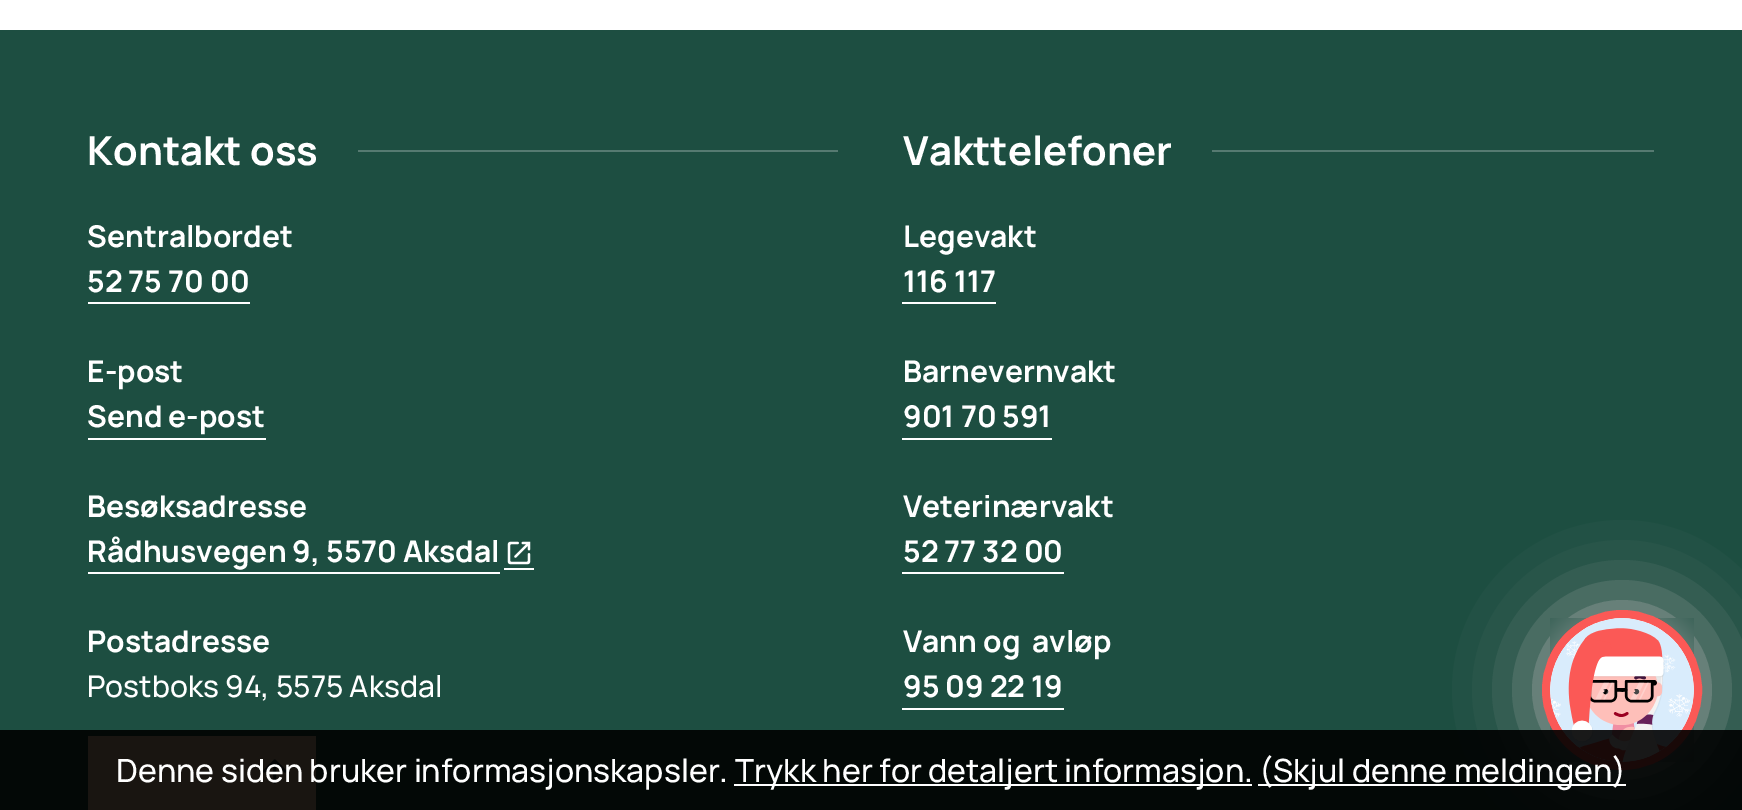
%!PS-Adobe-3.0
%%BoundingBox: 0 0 1742 810
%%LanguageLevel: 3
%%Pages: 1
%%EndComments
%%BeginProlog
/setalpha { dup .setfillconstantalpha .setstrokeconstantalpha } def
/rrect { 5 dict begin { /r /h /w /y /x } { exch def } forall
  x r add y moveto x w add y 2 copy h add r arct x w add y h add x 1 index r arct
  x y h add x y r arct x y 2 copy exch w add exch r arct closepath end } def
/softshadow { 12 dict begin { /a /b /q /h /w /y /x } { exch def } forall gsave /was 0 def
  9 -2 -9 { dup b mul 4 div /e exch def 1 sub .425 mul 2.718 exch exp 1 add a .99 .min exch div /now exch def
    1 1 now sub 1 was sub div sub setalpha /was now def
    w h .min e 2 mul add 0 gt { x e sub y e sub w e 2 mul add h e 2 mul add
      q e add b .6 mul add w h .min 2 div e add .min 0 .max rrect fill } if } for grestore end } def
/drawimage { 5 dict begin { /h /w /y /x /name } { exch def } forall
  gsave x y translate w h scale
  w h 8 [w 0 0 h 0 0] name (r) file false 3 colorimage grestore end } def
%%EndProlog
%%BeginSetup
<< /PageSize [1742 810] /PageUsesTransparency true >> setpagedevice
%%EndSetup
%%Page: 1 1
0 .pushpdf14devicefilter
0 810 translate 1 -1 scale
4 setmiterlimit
1 setgray
0 0 1742 810 rectfill
0.114 0.306 0.255 setrgbcolor
0 30 1742 780 rectfill
0.337 0.478 0.443 setrgbcolor
358 150 480 2 rectfill
1 setgray
88 302 162 2 rectfill
88 438 178 2 rectfill
88 572 412 2 rectfill
504 568 30 2 rectfill
(images/1.raw) 507 541 24 24 drawimage
0.337 0.478 0.443 setrgbcolor
1212 150 442 2 rectfill
1 setgray
902 302 94 2 rectfill
902 438 150 2 rectfill
902 572 162 2 rectfill
902 708 162 2 rectfill
0.992 0.859 0.671 setrgbcolor
88 736 228 74 rectfill
(images/2.raw) 262 759 25 25 drawimage
0.702 setgray
1542 610 160 160 80 40 1 softshadow
0.984 0.349 0.337 setrgbcolor
newpath 1622 690 76 0 360 arc closepath gsave fill grestore
8 setlinewidth
stroke
(images/3.raw) 1550 618 144 144 drawimage
0.9 setalpha
0 setgray
0 730 1742 80 rectfill
1 setalpha
1 setgray
734 784 518 2 rectfill
1258 784 368 2 rectfill
/Manrope-Bold [40 0 0 -40 0 0] selectfont
87 165 moveto (Kontakt oss) show
/Manrope-Bold [30 0 0 -30 0 0] selectfont
87 247 moveto (Sentralbordet) show
87 292 moveto (52 75 70 00) show
87 382 moveto (E-post) show
87 427 moveto (Send e-post) show
87 517 moveto (Besøksadresse) show
87 562 moveto (Rådhusvegen 9, 5570 Aksdal) show
87 652 moveto (Postadresse) show
/Manrope-Medium [30 0 0 -30 0 0] selectfont
87 697 moveto (Postboks 94, 5575 Aksdal) show
/Manrope-Bold [40 0 0 -40 0 0] selectfont
903 165 moveto (Vakttelefoner) show
/Manrope-Bold [30 0 0 -30 0 0] selectfont
903 247 moveto (Legevakt) show
903 292 moveto (116 117) show
903 382 moveto (Barnevernvakt) show
903 427 moveto (901 70 591) show
903 517 moveto (Veterinærvakt) show
903 562 moveto (52 77 32 00) show
903 652 moveto (Vann og  avløp) show
903 697 moveto (95 09 22 19) show
/Manrope-Medium [32 0 0 -32 0 0] selectfont
116 782 moveto (Denne siden bruker informasjonskapsler.) show
735 782 moveto (Trykk her for detaljert informasjon.) show
1259 782 moveto (\(Skjul denne meldingen\)) show
.poppdf14devicefilter showpage
%%EOF
